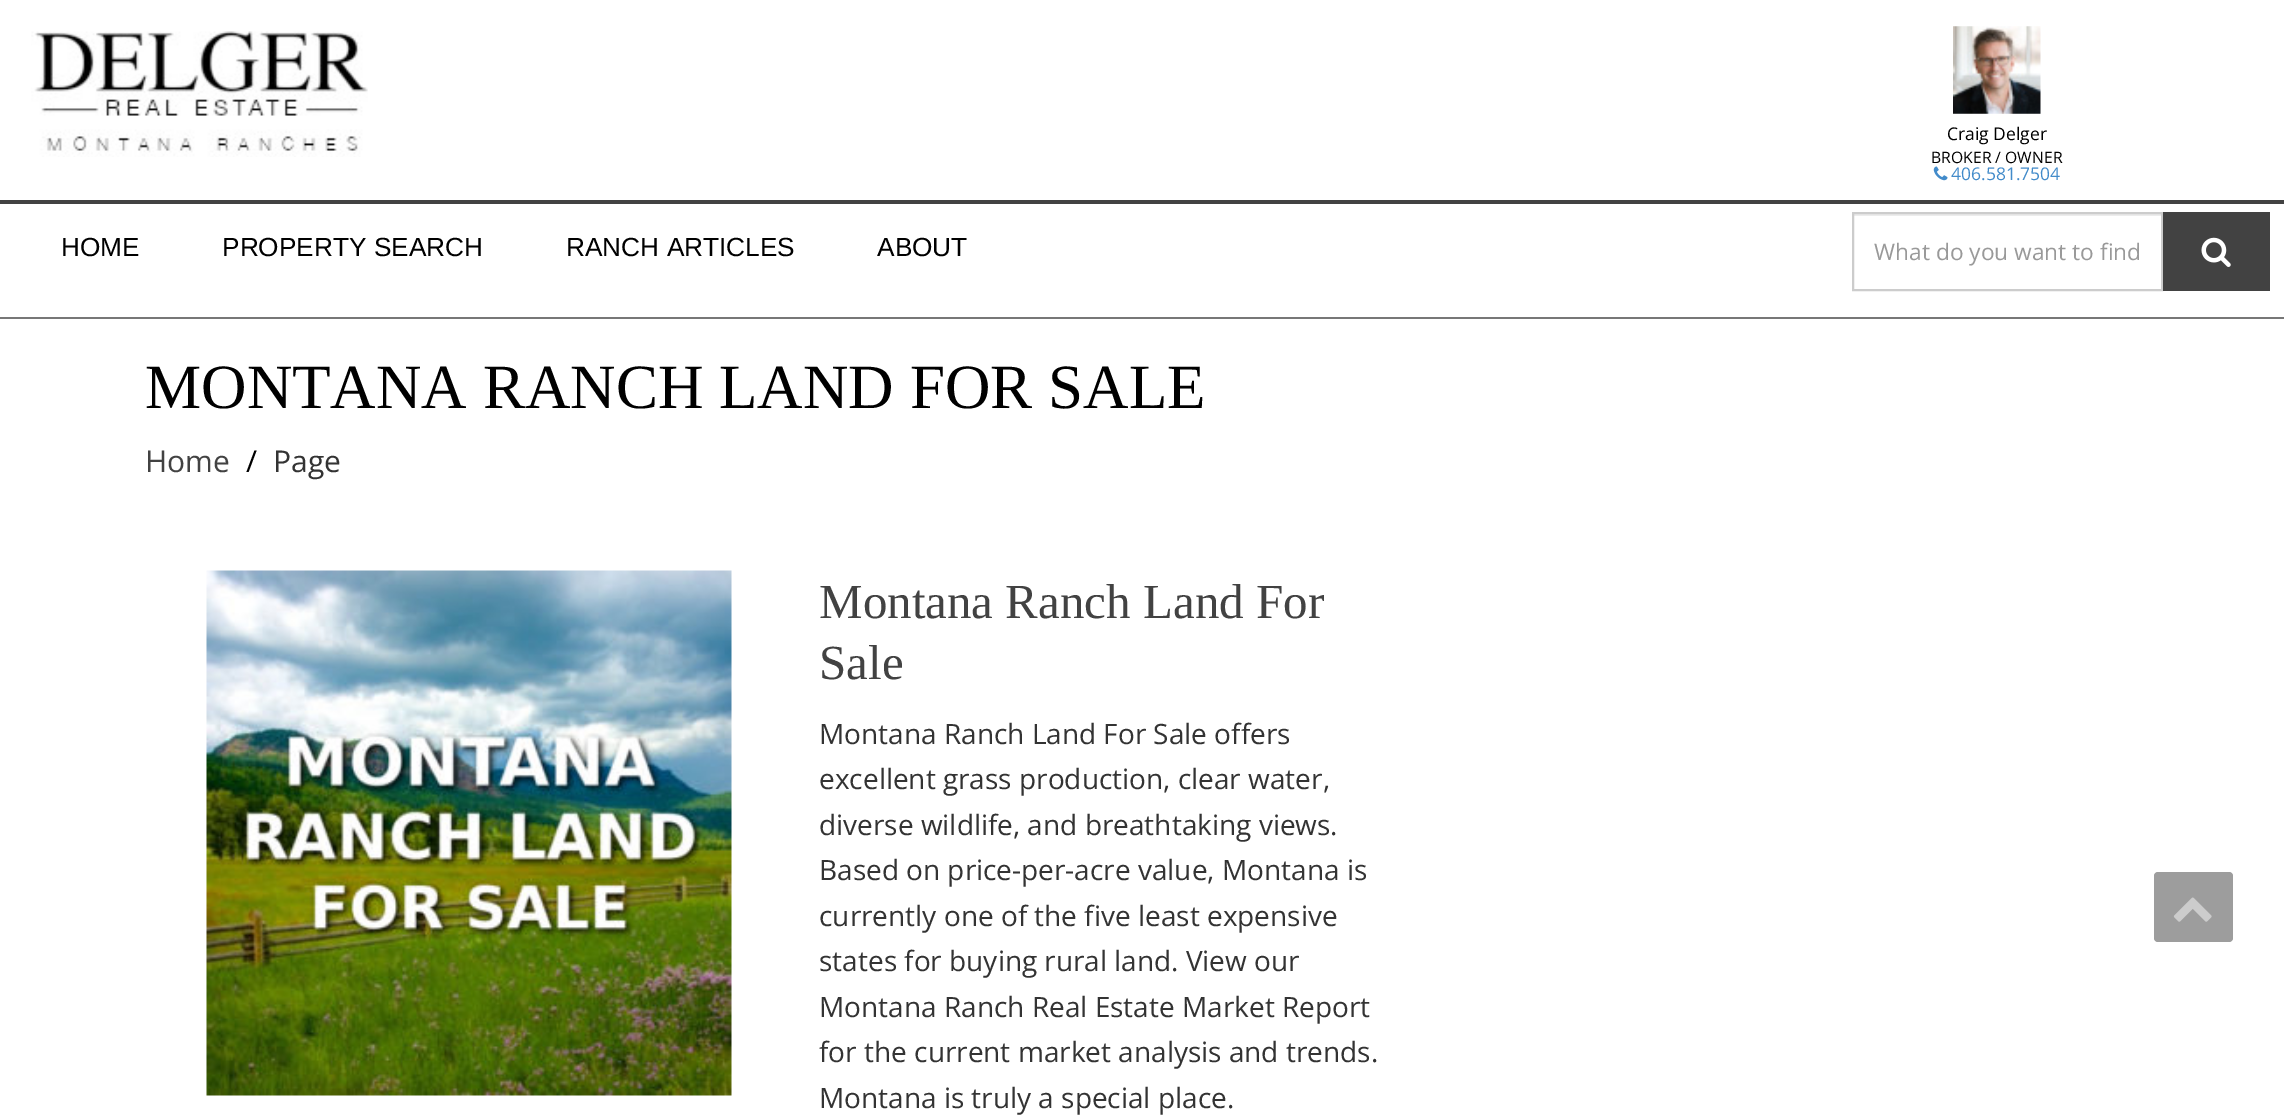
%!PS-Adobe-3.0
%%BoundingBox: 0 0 2284 1116
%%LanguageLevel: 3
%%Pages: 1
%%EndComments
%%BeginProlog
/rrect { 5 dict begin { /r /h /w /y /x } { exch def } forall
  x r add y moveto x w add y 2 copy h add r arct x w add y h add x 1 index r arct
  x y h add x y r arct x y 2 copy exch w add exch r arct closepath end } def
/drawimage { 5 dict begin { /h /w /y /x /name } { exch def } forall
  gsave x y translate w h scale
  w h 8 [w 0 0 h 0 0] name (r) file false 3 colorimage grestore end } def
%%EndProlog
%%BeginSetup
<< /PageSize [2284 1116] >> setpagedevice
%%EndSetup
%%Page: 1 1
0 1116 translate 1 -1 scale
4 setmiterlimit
1 setgray
0 0 2284 1116 rectfill
(images/1.raw) 31 31 337 126 drawimage
(images/2.raw) 1953 26 88 88 drawimage
(images/3.raw) 1933 166 15 15 drawimage
0.259 setgray
0 200 2284 4 rectfill
0.467 setgray
0 317 2284 2 rectfill
0.925 setgray
1853 214 308 2 rectfill
0.8 setgray
2 setlinewidth
1853 213 309 77 rectstroke
0.259 setgray
2163 212 107 79 rectfill
(images/4.raw) 2201 237 30 30 drawimage
(images/5.raw) 206 570 526 526 drawimage
0.616 setgray
2154 872 79 70 4 rrect fill
(images/6.raw) 2173 897 39 25 drawimage
/OpenSans-Regular [17.5 0 0 -17.5 0 0] selectfont
0 setgray
1947 140 moveto (Craig Delger) show
/OpenSans-Regular [15.75 0 0 -15.75 0 0] selectfont
1931 163 moveto (BROKER / OWNER) show
/OpenSans-Regular [17.5 0 0 -17.5 0 0] selectfont
0.259 0.545 0.792 setrgbcolor
1951 180 moveto (406.581.7504) show
/LiberationSans-Regular [26.25 0 0 -26.25 0 0] selectfont
0 setgray
61 256 moveto (HOME) show
222 256 moveto (PROPERTY SEARCH) show
566 256 moveto (RANCH ARTICLES) show
877 256 moveto (ABOUT) show
/OpenSans-Regular [22.75 0 0 -22.75 0 0] selectfont
0.6 setgray
1874 260 moveto (What do you want to find) show
/LiberationSerif-Regular [63 0 0 -63 0 0] selectfont
0 setgray
145 408 moveto (MONTANA RANCH LAND FOR SALE) show
/OpenSans-Regular [30 0 0 -30 0 0] selectfont
0.259 setgray
145 472 moveto (Home) show
0 setgray
246 472 moveto (/) show
0.2 setgray
273 472 moveto (Page) show
/LiberationSerif-Regular [49 0 0 -49 0 0] selectfont
0.259 setgray
819 618 moveto (Montana Ranch Land For) show
819 679 moveto (Sale) show
/OpenSans-Regular [28 0 0 -28 0 0] selectfont
0.2 setgray
819 744 moveto (Montana Ranch Land For Sale offers) show
819 789 moveto (excellent grass production, clear water,) show
819 835 moveto (diverse wildlife, and breathtaking views.) show
819 880 moveto (Based on price-per-acre value, Montana is) show
819 926 moveto (currently one of the five least expensive) show
819 971 moveto (states for buying rural land. View our) show
819 1017 moveto (Montana Ranch Real Estate Market Report) show
819 1062 moveto (for the current market analysis and trends.) show
819 1108 moveto (Montana is truly a special place.) show
showpage
%%EOF
